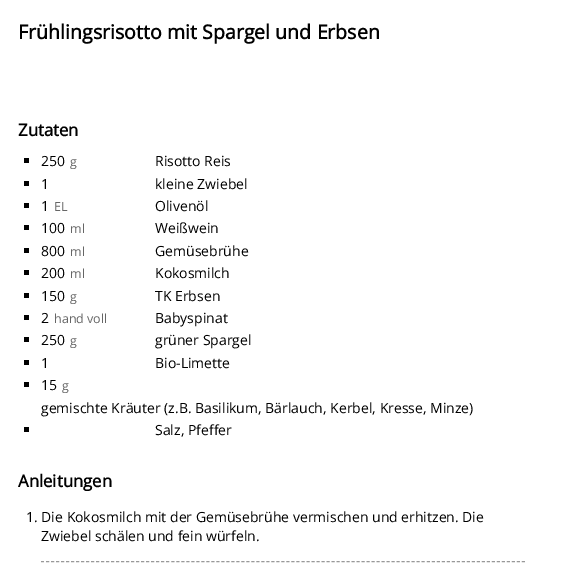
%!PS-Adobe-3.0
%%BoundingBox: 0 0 566 584
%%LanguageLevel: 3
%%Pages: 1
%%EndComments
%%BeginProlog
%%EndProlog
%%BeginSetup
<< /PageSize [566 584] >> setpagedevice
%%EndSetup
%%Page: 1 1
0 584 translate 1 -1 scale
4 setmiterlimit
1 setgray
0 0 566 584 rectfill
0 setgray
24 158 5 5 rectfill
24 181 5 5 rectfill
24 203 5 5 rectfill
24 225 5 5 rectfill
24 248 5 5 rectfill
24 270 5 5 rectfill
24 293 5 5 rectfill
24 315 5 5 rectfill
24 337 5 5 rectfill
24 360 5 5 rectfill
24 382 5 5 rectfill
24 427 5 5 rectfill
0.6 setgray
[3 2.01] 0 setdash
newpath 41 561.5 moveto 525 561.5 lineto stroke
/OpenSans-Bold [19.6 0 0 -19.6 0 0] selectfont
0 setgray
18 39 moveto (Frühlingsrisotto mit Spargel und Erbsen) show
/OpenSans-Bold [16.75 0 0 -16.75 0 0] selectfont
18 136 moveto (Zutaten) show
/OpenSans-Regular [14 0 0 -14 0 0] selectfont
41 166 moveto (250) show
/OpenSans-Regular [12.5 0 0 -12.5 0 0] selectfont
0.4 setgray
70 166 moveto (g) show
/OpenSans-Regular [14 0 0 -14 0 0] selectfont
0 setgray
155 166 moveto (Risotto Reis) show
41 189 moveto (1) show
155 189 moveto (kleine Zwiebel) show
41 211 moveto (1) show
/OpenSans-Regular [12.5 0 0 -12.5 0 0] selectfont
0.4 setgray
54 211 moveto (EL) show
/OpenSans-Regular [14 0 0 -14 0 0] selectfont
0 setgray
155 211 moveto (Olivenöl) show
41 233 moveto (100) show
/OpenSans-Regular [12.5 0 0 -12.5 0 0] selectfont
0.4 setgray
70 233 moveto (ml) show
/OpenSans-Regular [14 0 0 -14 0 0] selectfont
0 setgray
155 233 moveto (Weißwein) show
41 256 moveto (800) show
/OpenSans-Regular [12.5 0 0 -12.5 0 0] selectfont
0.4 setgray
70 256 moveto (ml) show
/OpenSans-Regular [14 0 0 -14 0 0] selectfont
0 setgray
155 256 moveto (Gemüsebrühe) show
41 278 moveto (200) show
/OpenSans-Regular [12.5 0 0 -12.5 0 0] selectfont
0.4 setgray
70 278 moveto (ml) show
/OpenSans-Regular [14 0 0 -14 0 0] selectfont
0 setgray
155 278 moveto (Kokosmilch) show
41 301 moveto (150) show
/OpenSans-Regular [12.5 0 0 -12.5 0 0] selectfont
0.4 setgray
70 301 moveto (g) show
/OpenSans-Regular [14 0 0 -14 0 0] selectfont
0 setgray
155 301 moveto (TK Erbsen) show
41 323 moveto (2) show
/OpenSans-Regular [12.5 0 0 -12.5 0 0] selectfont
0.4 setgray
54 323 moveto (hand voll) show
/OpenSans-Regular [14 0 0 -14 0 0] selectfont
0 setgray
155 323 moveto (Babyspinat) show
41 345 moveto (250) show
/OpenSans-Regular [12.5 0 0 -12.5 0 0] selectfont
0.4 setgray
70 345 moveto (g) show
/OpenSans-Regular [14 0 0 -14 0 0] selectfont
0 setgray
155 345 moveto (grüner Spargel) show
41 368 moveto (1) show
155 368 moveto (Bio-Limette) show
41 390 moveto (15) show
/OpenSans-Regular [12.5 0 0 -12.5 0 0] selectfont
0.4 setgray
62 390 moveto (g) show
/OpenSans-Regular [14 0 0 -14 0 0] selectfont
0 setgray
41 413 moveto (gemischte Kräuter \(z.B. Basilikum, Bärlauch, Kerbel, Kresse, Minze\)) show
155 435 moveto (Salz, Pfeffer) show
/OpenSans-Bold [16.75 0 0 -16.75 0 0] selectfont
18 487 moveto (Anleitungen) show
/OpenSans-Regular [14 0 0 -14 0 0] selectfont
26 522 moveto (1. Die Kokosmilch mit der Gemüsebrühe vermischen und erhitzen. Die) show
41 541 moveto (Zwiebel schälen und fein würfeln.) show
showpage
%%EOF
